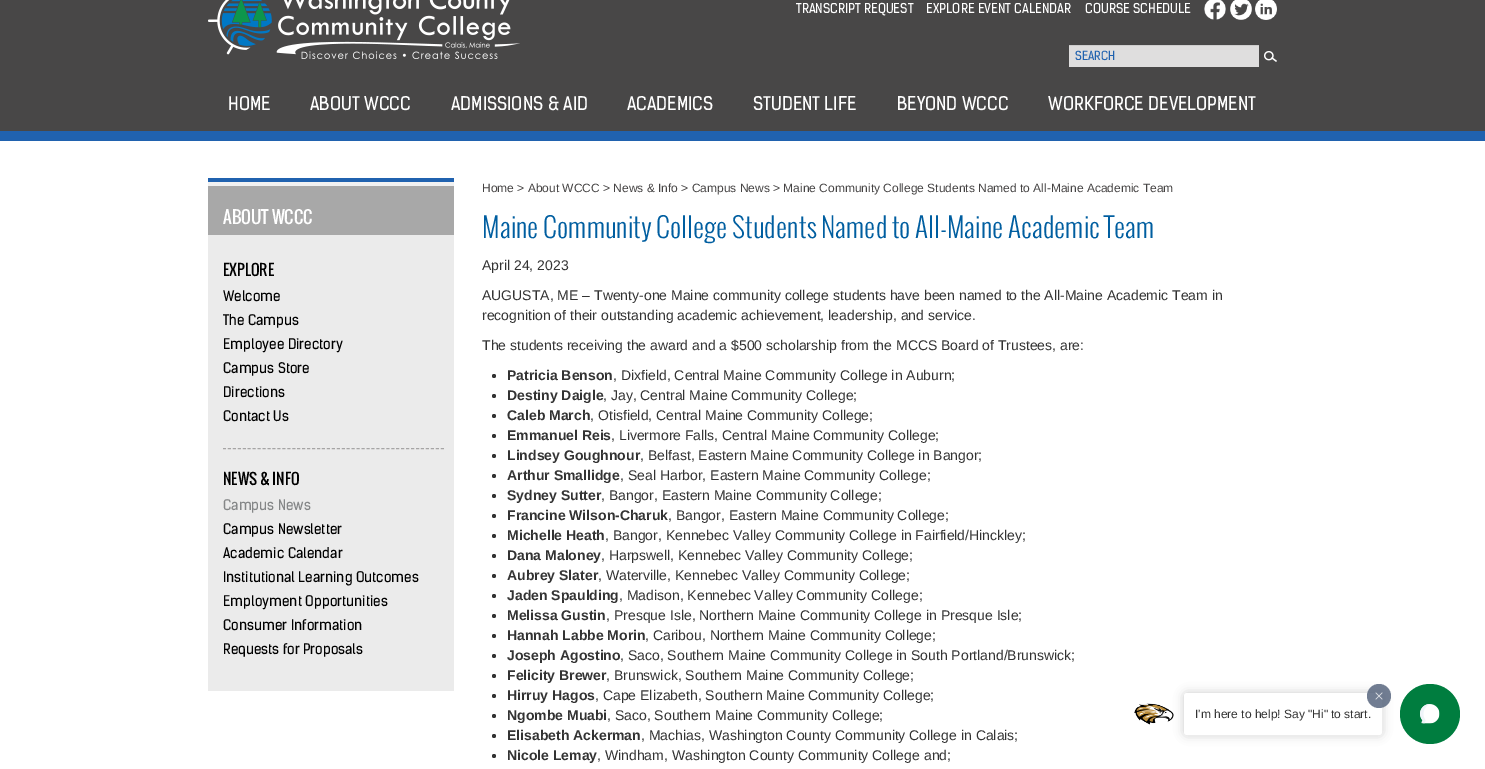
%!PS-Adobe-3.0
%%BoundingBox: 0 0 1485 769
%%LanguageLevel: 3
%%Pages: 1
%%EndComments
%%BeginProlog
/setalpha { dup .setfillconstantalpha .setstrokeconstantalpha } def
/rrect { 5 dict begin { /r /h /w /y /x } { exch def } forall
  x r add y moveto x w add y 2 copy h add r arct x w add y h add x 1 index r arct
  x y h add x y r arct x y 2 copy exch w add exch r arct closepath end } def
/softshadow { 12 dict begin { /a /b /q /h /w /y /x } { exch def } forall gsave /was 0 def
  9 -2 -9 { dup b mul 4 div /e exch def 1 sub .425 mul 2.718 exch exp 1 add a .99 .min exch div /now exch def
    1 1 now sub 1 was sub div sub setalpha /was now def
    w h .min e 2 mul add 0 gt { x e sub y e sub w e 2 mul add h e 2 mul add
      q e add b .6 mul add w h .min 2 div e add .min 0 .max rrect fill } if } for grestore end } def
/drawimage { 5 dict begin { /h /w /y /x /name } { exch def } forall
  gsave x y translate w h scale
  w h 8 [w 0 0 h 0 0] name (r) file false 3 colorimage grestore end } def
%%EndProlog
%%BeginSetup
<< /PageSize [1485 769] /PageUsesTransparency true >> setpagedevice
%%EndSetup
%%Page: 1 1
0 .pushpdf14devicefilter
0 769 translate 1 -1 scale
4 setmiterlimit
1 setgray
0 0 1485 769 rectfill
0.282 0.278 0.278 setrgbcolor
0 0 1485 131 rectfill
0.125 0.384 0.686 setrgbcolor
0 131 1485 10 rectfill
(images/1.raw) 208 0 312 59 drawimage
(images/2.raw) 1204 0 22 20 drawimage
(images/3.raw) 1230 0 22 20 drawimage
(images/4.raw) 1255 0 22 20 drawimage
0.875 0.871 0.871 setrgbcolor
1069 46 190 21 rectfill
0.808 0.804 0.804 setrgbcolor
1069 45 190 1 rectfill
(images/5.raw) 1264 51 13 11 drawimage
0.922 setgray
208 235 246 456 rectfill
0.125 0.384 0.686 setrgbcolor
208 178 246 4 rectfill
0.659 setgray
208 186 246 49 rectfill
0.945 setgray
208 182 246 4 rectfill
0.651 0.647 0.647 setrgbcolor
[3 1.95] 0 setdash
newpath 223 448.5 moveto 444 448.5 lineto stroke
0.2 setgray
newpath 494 376 2 0 360 arc closepath fill
newpath 494 396 2 0 360 arc closepath fill
newpath 494 416 2 0 360 arc closepath fill
newpath 494 436 2 0 360 arc closepath fill
newpath 494 456 2 0 360 arc closepath fill
newpath 494 476 2 0 360 arc closepath fill
newpath 494 496 2 0 360 arc closepath fill
newpath 494 516 2 0 360 arc closepath fill
newpath 494 536 2 0 360 arc closepath fill
newpath 494 556 2 0 360 arc closepath fill
newpath 494 576 2 0 360 arc closepath fill
newpath 494 596 2 0 360 arc closepath fill
newpath 494 616 2 0 360 arc closepath fill
newpath 494 636 2 0 360 arc closepath fill
newpath 494 656 2 0 360 arc closepath fill
newpath 494 676 2 0 360 arc closepath fill
newpath 494 696 2 0 360 arc closepath fill
newpath 494 716 2 0 360 arc closepath fill
newpath 494 736 2 0 360 arc closepath fill
newpath 494 756 2 0 360 arc closepath fill
(images/6.raw) 1134 703 40 22 drawimage
0 setgray
1184 693 198 42 3 5 0.2 softshadow
1 setgray
1184.5 693.5 197 41 2.5 rrect gsave fill grestore
[] 0 setdash
stroke
0.8 setalpha
0.306 0.365 0.467 setrgbcolor
newpath 1379 696 12 0 360 arc closepath fill
1 setalpha
(images/7.raw) 1375 692 8 8 drawimage
0 0.49 0.247 setrgbcolor
newpath 1430 714 30 0 360 arc closepath fill
(images/8.raw) 1420 704 20 20 drawimage
/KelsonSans-Regular [13 0 0 -13 0 0] selectfont
1 setgray
796 13 moveto (TRANSCRIPT REQUEST) show
926 13 moveto (EXPLORE EVENT CALENDAR) show
1085 13 moveto (COURSE SCHEDULE) show
/KelsonSans-Regular [12 0 0 -12 0 0] selectfont
0.125 0.384 0.686 setrgbcolor
1075 60 moveto (SEARCH) show
/KelsonSans-Regular [18 0 0 -18 0 0] selectfont
1 setgray
228 110 moveto (HOME) show
310 110 moveto (ABOUT WCCC) show
451 110 moveto (ADMISSIONS & AID) show
627 110 moveto (ACADEMICS) show
753 110 moveto (STUDENT LIFE) show
897 110 moveto (BEYOND WCCC) show
1048 110 moveto (WORKFORCE DEVELOPMENT) show
/Oswald-Regular [17 0 0 -17 0 0] selectfont
223 224 moveto (ABOUT WCCC) show
/Oswald-Regular [15 0 0 -15 0 0] selectfont
0 setgray
223 276 moveto (EXPLORE) show
/KelsonSans-Regular [14 0 0 -14 0 0] selectfont
223 301 moveto (Welcome) show
223 325 moveto (The Campus) show
223 349 moveto (Employee Directory) show
223 373 moveto (Campus Store) show
223 397 moveto (Directions) show
223 421 moveto (Contact Us) show
/Oswald-Regular [15 0 0 -15 0 0] selectfont
223 485 moveto (NEWS & INFO) show
/KelsonSans-Regular [14 0 0 -14 0 0] selectfont
0.518 0.525 0.529 setrgbcolor
223 510 moveto (Campus News) show
0 setgray
223 534 moveto (Campus Newsletter) show
223 558 moveto (Academic Calendar) show
223 582 moveto (Institutional Learning Outcomes) show
223 606 moveto (Employment Opportunities) show
223 630 moveto (Consumer Information) show
223 654 moveto (Requests for Proposals) show
/LiberationSans-Regular [12 0 0 -12 0 0] selectfont
0.271 0.263 0.263 setrgbcolor
482 192 moveto (Home > About WCCC > News & Info > Campus News > Maine Community College Students Named to All-Maine Academic Team) show
/Oswald-Light [27 0 0 -27 0 0] selectfont
0 0.369 0.627 setrgbcolor
482 238 moveto (Maine Community College Students Named to All-Maine Academic Team) show
/LiberationSans-Regular [14 0 0 -14 0 0] selectfont
0.2 setgray
482 270 moveto (April 24, 2023) show
482 300 moveto (AUGUSTA, ME – Twenty-one Maine community college students have been named to the All-Maine Academic Team in) show
482 320 moveto (recognition of their outstanding academic achievement, leadership, and service.) show
482 350 moveto (The students receiving the award and a $500 scholarship from the MCCS Board of Trustees, are:) show
/LiberationSans-Bold [14 0 0 -14 0 0] selectfont
507 380 moveto (Patricia Benson) show
/LiberationSans-Regular [14 0 0 -14 0 0] selectfont
613 380 moveto (, Dixfield, Central Maine Community College in Auburn;) show
/LiberationSans-Bold [14 0 0 -14 0 0] selectfont
507 400 moveto (Destiny Daigle) show
/LiberationSans-Regular [14 0 0 -14 0 0] selectfont
603 400 moveto (, Jay, Central Maine Community College;) show
/LiberationSans-Bold [14 0 0 -14 0 0] selectfont
507 420 moveto (Caleb March) show
/LiberationSans-Regular [14 0 0 -14 0 0] selectfont
590 420 moveto (, Otisfield, Central Maine Community College;) show
/LiberationSans-Bold [14 0 0 -14 0 0] selectfont
507 440 moveto (Emmanuel Reis) show
/LiberationSans-Regular [14 0 0 -14 0 0] selectfont
611 440 moveto (, Livermore Falls, Central Maine Community College;) show
/LiberationSans-Bold [14 0 0 -14 0 0] selectfont
507 460 moveto (Lindsey Goughnour) show
/LiberationSans-Regular [14 0 0 -14 0 0] selectfont
640 460 moveto (, Belfast, Eastern Maine Community College in Bangor;) show
/LiberationSans-Bold [14 0 0 -14 0 0] selectfont
507 480 moveto (Arthur Smallidge) show
/LiberationSans-Regular [14 0 0 -14 0 0] selectfont
620 480 moveto (, Seal Harbor, Eastern Maine Community College;) show
/LiberationSans-Bold [14 0 0 -14 0 0] selectfont
507 500 moveto (Sydney Sutter) show
/LiberationSans-Regular [14 0 0 -14 0 0] selectfont
601 500 moveto (, Bangor, Eastern Maine Community College;) show
/LiberationSans-Bold [14 0 0 -14 0 0] selectfont
507 520 moveto (Francine Wilson-Charuk) show
/LiberationSans-Regular [14 0 0 -14 0 0] selectfont
668 520 moveto (, Bangor, Eastern Maine Community College;) show
/LiberationSans-Bold [14 0 0 -14 0 0] selectfont
507 540 moveto (Michelle Heath) show
/LiberationSans-Regular [14 0 0 -14 0 0] selectfont
605 540 moveto (, Bangor, Kennebec Valley Community College in Fairfield/Hinckley;) show
/LiberationSans-Bold [14 0 0 -14 0 0] selectfont
507 560 moveto (Dana Maloney) show
/LiberationSans-Regular [14 0 0 -14 0 0] selectfont
601 560 moveto (, Harpswell, Kennebec Valley Community College;) show
/LiberationSans-Bold [14 0 0 -14 0 0] selectfont
507 580 moveto (Aubrey Slater) show
/LiberationSans-Regular [14 0 0 -14 0 0] selectfont
598 580 moveto (, Waterville, Kennebec Valley Community College;) show
/LiberationSans-Bold [14 0 0 -14 0 0] selectfont
507 600 moveto (Jaden Spaulding) show
/LiberationSans-Regular [14 0 0 -14 0 0] selectfont
619 600 moveto (, Madison, Kennebec Valley Community College;) show
/LiberationSans-Bold [14 0 0 -14 0 0] selectfont
507 620 moveto (Melissa Gustin) show
/LiberationSans-Regular [14 0 0 -14 0 0] selectfont
606 620 moveto (, Presque Isle, Northern Maine Community College in Presque Isle;) show
/LiberationSans-Bold [14 0 0 -14 0 0] selectfont
507 640 moveto (Hannah Labbe Morin) show
/LiberationSans-Regular [14 0 0 -14 0 0] selectfont
645 640 moveto (, Caribou, Northern Maine Community College;) show
/LiberationSans-Bold [14 0 0 -14 0 0] selectfont
507 660 moveto (Joseph Agostino) show
/LiberationSans-Regular [14 0 0 -14 0 0] selectfont
620 660 moveto (, Saco, Southern Maine Community College in South Portland/Brunswick;) show
/LiberationSans-Bold [14 0 0 -14 0 0] selectfont
507 680 moveto (Felicity Brewer) show
/LiberationSans-Regular [14 0 0 -14 0 0] selectfont
606 680 moveto (, Brunswick, Southern Maine Community College;) show
/LiberationSans-Bold [14 0 0 -14 0 0] selectfont
507 700 moveto (Hirruy Hagos) show
/LiberationSans-Regular [14 0 0 -14 0 0] selectfont
595 700 moveto (, Cape Elizabeth, Southern Maine Community College;) show
/LiberationSans-Bold [14 0 0 -14 0 0] selectfont
507 720 moveto (Ngombe Muabi) show
/LiberationSans-Regular [14 0 0 -14 0 0] selectfont
607 720 moveto (, Saco, Southern Maine Community College;) show
/LiberationSans-Bold [14 0 0 -14 0 0] selectfont
507 740 moveto (Elisabeth Ackerman) show
/LiberationSans-Regular [14 0 0 -14 0 0] selectfont
641 740 moveto (, Machias, Washington County Community College in Calais;) show
/LiberationSans-Bold [14 0 0 -14 0 0] selectfont
507 760 moveto (Nicole Lemay) show
/LiberationSans-Regular [14 0 0 -14 0 0] selectfont
597 760 moveto (, Windham, Washington County Community College and;) show
/LiberationSans-Regular [12 0 0 -12 0 0] selectfont
1195 718 moveto (I'm here to help! Say "Hi" to start.) show
.poppdf14devicefilter showpage
%%EOF
